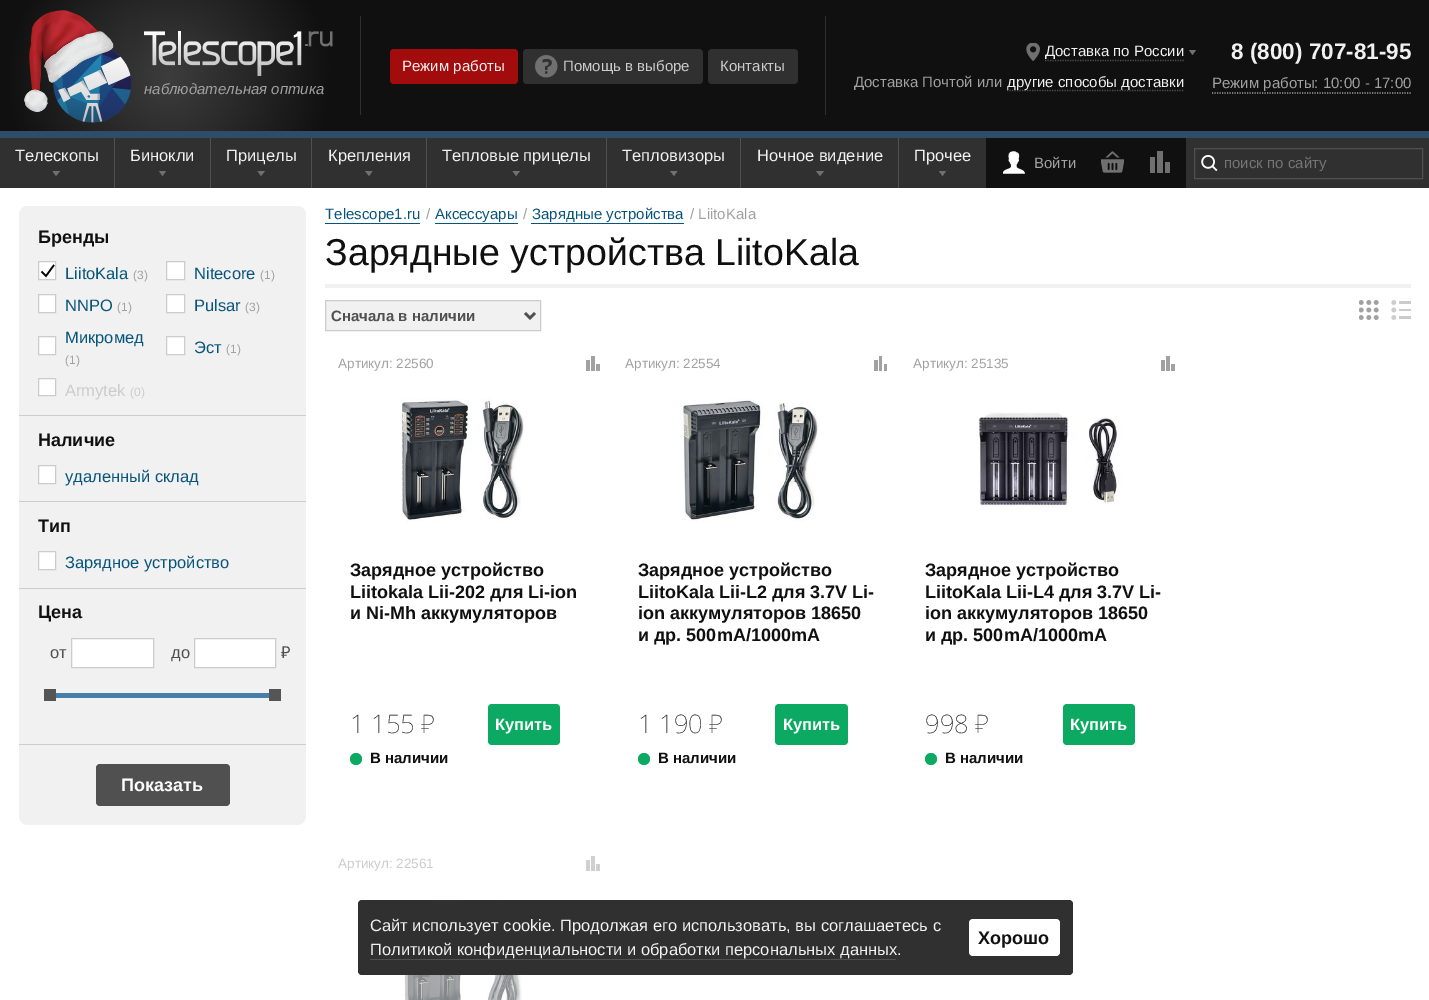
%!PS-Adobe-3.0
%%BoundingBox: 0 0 1429 1000
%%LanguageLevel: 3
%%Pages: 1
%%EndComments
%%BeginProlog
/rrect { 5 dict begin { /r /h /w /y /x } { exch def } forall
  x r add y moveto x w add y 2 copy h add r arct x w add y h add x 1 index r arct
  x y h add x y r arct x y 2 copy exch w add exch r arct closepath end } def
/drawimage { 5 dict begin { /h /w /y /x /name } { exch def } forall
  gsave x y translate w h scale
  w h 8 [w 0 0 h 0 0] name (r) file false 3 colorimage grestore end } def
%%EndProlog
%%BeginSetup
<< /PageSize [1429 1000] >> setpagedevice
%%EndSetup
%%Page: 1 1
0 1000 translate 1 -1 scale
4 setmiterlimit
1 setgray
0 0 1429 1000 rectfill
gsave newpath 0 0 moveto 1429 0 lineto 1429 131 lineto 0 131 lineto closepath clip newpath 169 79 translate 163 163 scale
<< /ShadingType 3 /ColorSpace /DeviceRGB /Coords [0 0 0 0 0 1] /Extend [true true] /Function << /FunctionType 2 /Domain [0 1] /C0 [0.239 0.239 0.239] /C1 [0.063 0.063 0.063] /N 1 >> >> shfill grestore
0.188 setgray
360 16 1 99 rectfill
0.639 0.047 0.047 setrgbcolor
390 49 128 35 4 rrect fill
0.188 setgray
523 49 180 35 4 rrect fill
(images/1.raw) 535 55 23 23 drawimage
708 49 90 35 4 rrect fill
825 16 1 99 rectfill
(images/2.raw) 1026 43 14 18 drawimage
0.314 setgray
1.2 setlinewidth
[1.25 1.25] 0 setdash
newpath 1045 60.5 moveto 1184 60.5 lineto stroke
0.439 setgray
newpath 1189 50 moveto 1196 50 lineto 1192.5 55 lineto closepath fill
0.314 setgray
newpath 1007 90.5 moveto 1184 90.5 lineto stroke
0.631 setgray
newpath 1212 93 moveto 1411 93 lineto stroke
(images/3.raw) 24 10 107 113 drawimage
(images/4.raw) 144 31 189 45 drawimage
0.188 setgray
0 138 1429 50 rectfill
0.18 0.302 0.408 setrgbcolor
0 131 1429 7 rectfill
0.439 setgray
newpath 52.5 171 moveto 60 171 lineto 56 176 lineto closepath fill
0.314 setgray
114 138 1 50 rectfill
0.439 setgray
newpath 159 171 moveto 166 171 lineto 162.5 176 lineto closepath fill
0.314 setgray
210 138 1 50 rectfill
0.439 setgray
newpath 257.5 171 moveto 265 171 lineto 261 176 lineto closepath fill
0.314 setgray
311 138 1 50 rectfill
0.439 setgray
newpath 365 171 moveto 372.5 171 lineto 369 176 lineto closepath fill
0.314 setgray
426 138 1 50 rectfill
0.439 setgray
newpath 512.5 171 moveto 520 171 lineto 516 176 lineto closepath fill
0.314 setgray
606 138 1 50 rectfill
0.439 setgray
newpath 670 171 moveto 677.5 171 lineto 674 176 lineto closepath fill
0.314 setgray
740 138 1 50 rectfill
0.439 setgray
newpath 816 171 moveto 824 171 lineto 820 176 lineto closepath fill
0.314 setgray
898 138 1 50 rectfill
0.439 setgray
newpath 939 171 moveto 946 171 lineto 942.5 176 lineto closepath fill
0.063 setgray
986 138 200 50 rectfill
(images/5.raw) 1003 151 22 23 drawimage
(images/6.raw) 1101 151 23 22 drawimage
0.439 setgray
1165 162 5 11 rectfill
1150 157 5 16 rectfill
1157 151 6 22 rectfill
0.314 setgray
1 setlinewidth
[] 0 setdash
1194.5 148.5 228 30 rectstroke
(images/7.raw) 1201 155 17 16 drawimage
0.945 setgray
19 206 287 619 9 rrect fill
0.8 setgray
19 415 287 1 rectfill
1 setgray
39 262 16 17 rectfill
0 setgray
1.6 setlinewidth
newpath 41.5 271.5 moveto 46 276 lineto 54 265 lineto stroke
0.8 setgray
1 setlinewidth
38.5 261.5 17 18 rectstroke
1 setgray
newpath 166.5 261.5 moveto 184.5 261.5 lineto 184.5 279.5 lineto 166.5 279.5 lineto closepath gsave fill grestore
0.8 setgray
stroke
1 setgray
newpath 38.5 294.5 moveto 55.5 294.5 lineto 55.5 312.5 lineto 38.5 312.5 lineto closepath gsave fill grestore
0.8 setgray
stroke
1 setgray
newpath 166.5 294.5 moveto 184.5 294.5 lineto 184.5 312.5 lineto 166.5 312.5 lineto closepath gsave fill grestore
0.8 setgray
stroke
1 setgray
newpath 38.5 336.5 moveto 55.5 336.5 lineto 55.5 354.5 lineto 38.5 354.5 lineto closepath gsave fill grestore
0.8 setgray
stroke
1 setgray
newpath 166.5 336.5 moveto 184.5 336.5 lineto 184.5 354.5 lineto 166.5 354.5 lineto closepath gsave fill grestore
0.8 setgray
stroke
1 setgray
newpath 38.5 378.5 moveto 55.5 378.5 lineto 55.5 395.5 lineto 38.5 395.5 lineto closepath gsave fill grestore
0.8 setgray
stroke
19 501 287 1 rectfill
1 setgray
newpath 38.5 465.5 moveto 55.5 465.5 lineto 55.5 483.5 lineto 38.5 483.5 lineto closepath gsave fill grestore
0.8 setgray
stroke
19 588 287 1 rectfill
1 setgray
newpath 38.5 551.5 moveto 55.5 551.5 lineto 55.5 569.5 lineto 38.5 569.5 lineto closepath gsave fill grestore
0.8 setgray
stroke
19 744 287 1 rectfill
1 setgray
newpath 71.5 638.5 moveto 153.5 638.5 lineto 153.5 667.5 lineto 71.5 667.5 lineto closepath gsave fill grestore
0.8 setgray
stroke
1 setgray
newpath 194.5 638.5 moveto 275.5 638.5 lineto 275.5 667.5 lineto 194.5 667.5 lineto closepath gsave fill grestore
0.8 setgray
stroke
0.271 0.502 0.667 setrgbcolor
50 693 225 5 rectfill
0.333 setgray
44 689 12 12 rectfill
269 689 12 12 rectfill
0.314 setgray
96 764 134 42 4 rrect fill
0.027 0.333 0.486 setrgbcolor
325 223 95 1 rectfill
435 223 83 1 rectfill
531 223 153 1 rectfill
0.945 setgray
325 284 1086 4 rectfill
newpath 325.5 300.5 moveto 540.5 300.5 lineto 540.5 330.5 lineto 325.5 330.5 lineto closepath gsave fill grestore
0.8 setgray
stroke
0.314 setgray
2.5 setlinewidth
newpath 525 313 moveto 530 318 lineto 535 313 lineto stroke
(images/8.raw) 1359 300 20 20 drawimage
(images/9.raw) 1391 300 20 20 drawimage
(images/10.raw) 401 398 125 125 drawimage
0.043 0.663 0.38 setrgbcolor
488 704 72 41 4 rrect fill
newpath 356 759 6 0 360 arc closepath fill
0.631 setgray
596 364 4 7 rectfill
586 360 4 11 rectfill
591 356 4 15 rectfill
(images/11.raw) 679 399 140 123 drawimage
0.043 0.663 0.38 setrgbcolor
775 704 73 41 4 rrect fill
newpath 644 759 6 0 360 arc closepath fill
0.631 setgray
884 364 3 7 rectfill
874 360 4 11 rectfill
879 356 3 15 rectfill
(images/12.raw) 979 412 145 98 drawimage
0.043 0.663 0.38 setrgbcolor
1063 704 72 41 4 rrect fill
newpath 931 759 6 0 360 arc closepath fill
0.631 setgray
1171 364 4 7 rectfill
1161 360 4 11 rectfill
1166 356 4 15 rectfill
(images/13.raw) 401 899 125 101 drawimage
0.816 setgray
596 864 4 7 rectfill
586 860 4 11 rectfill
591 856 4 15 rectfill
0.188 setgray
358 900 715 75 4 rrect fill
0.314 setgray
370 959 526 1 rectfill
1 setgray
969 919 91 37 4 rrect fill
/LiberationSans-Regular [15 0 0 -15 0 0] selectfont
0.945 setgray
402 71 moveto (Режим работы) show
0.8 setgray
563 71 moveto (Помощь в выборе) show
720 71 moveto (Контакты) show
0.945 setgray
1045 56 moveto (Доставка по России) show
0.631 setgray
854 87 moveto (Доставка Почтой или) show
0.945 setgray
1007 87 moveto (другие способы доставки) show
/LiberationSans-Bold [22.5 0 0 -22.5 0 0] selectfont
1231 59 moveto (8 \(800\) 707-81-95) show
/LiberationSans-Regular [15 0 0 -15 0 0] selectfont
0.631 setgray
1212 88 moveto (Режим работы: 10:00 - 17:00) show
/LiberationSans-Italic [15 0 0 -15 0 0] selectfont
144 94 moveto (наблюдательная оптика) show
/LiberationSans-Regular [16.5 0 0 -16.5 0 0] selectfont
0.945 setgray
15 161 moveto (Телескопы) show
130 161 moveto (Бинокли) show
226 161 moveto (Прицелы) show
328 161 moveto (Крепления) show
442 161 moveto (Тепловые прицелы) show
622 161 moveto (Тепловизоры) show
757 161 moveto (Ночное видение) show
914 161 moveto (Прочее) show
/LiberationSans-Regular [15 0 0 -15 0 0] selectfont
0.631 setgray
1034 168 moveto (Войти) show
0.459 setgray
1224 168 moveto (поиск по сайту) show
/LiberationSans-Bold [18 0 0 -18 0 0] selectfont
0.063 setgray
38 243 moveto (Бренды) show
/LiberationSans-Regular [16.5 0 0 -16.5 0 0] selectfont
0.027 0.333 0.486 setrgbcolor
65 279 moveto (LiitoKala) show
/LiberationSans-Regular [12 0 0 -12 0 0] selectfont
0.631 setgray
133 279 moveto (\(3\)) show
/LiberationSans-Regular [16.5 0 0 -16.5 0 0] selectfont
0.027 0.333 0.486 setrgbcolor
194 279 moveto (Nitecore) show
/LiberationSans-Regular [12 0 0 -12 0 0] selectfont
0.631 setgray
260 279 moveto (\(1\)) show
/LiberationSans-Regular [16.5 0 0 -16.5 0 0] selectfont
0.027 0.333 0.486 setrgbcolor
65 311 moveto (NNPO) show
/LiberationSans-Regular [12 0 0 -12 0 0] selectfont
0.631 setgray
117 311 moveto (\(1\)) show
/LiberationSans-Regular [16.5 0 0 -16.5 0 0] selectfont
0.027 0.333 0.486 setrgbcolor
194 311 moveto (Pulsar) show
/LiberationSans-Regular [12 0 0 -12 0 0] selectfont
0.631 setgray
245 311 moveto (\(3\)) show
/LiberationSans-Regular [16.5 0 0 -16.5 0 0] selectfont
0.027 0.333 0.486 setrgbcolor
65 343 moveto (Микромед) show
/LiberationSans-Regular [12 0 0 -12 0 0] selectfont
0.631 setgray
65 364 moveto (\(1\)) show
/LiberationSans-Regular [16.5 0 0 -16.5 0 0] selectfont
0.027 0.333 0.486 setrgbcolor
194 353 moveto (Эст) show
/LiberationSans-Regular [12 0 0 -12 0 0] selectfont
0.631 setgray
226 353 moveto (\(1\)) show
/LiberationSans-Regular [16.5 0 0 -16.5 0 0] selectfont
0.8 setgray
65 396 moveto (Armytek) show
/LiberationSans-Regular [12 0 0 -12 0 0] selectfont
130 396 moveto (\(0\)) show
/LiberationSans-Bold [18 0 0 -18 0 0] selectfont
0.063 setgray
38 446 moveto (Наличие) show
/LiberationSans-Regular [16.5 0 0 -16.5 0 0] selectfont
0.027 0.333 0.486 setrgbcolor
65 482 moveto (удаленный склад) show
/LiberationSans-Bold [18 0 0 -18 0 0] selectfont
0.063 setgray
38 532 moveto (Тип) show
/LiberationSans-Regular [16.5 0 0 -16.5 0 0] selectfont
0.027 0.333 0.486 setrgbcolor
65 568 moveto (Зарядное устройство) show
/LiberationSans-Bold [18 0 0 -18 0 0] selectfont
0.063 setgray
38 618 moveto (Цена) show
/LiberationSans-Regular [16.5 0 0 -16.5 0 0] selectfont
0.314 setgray
50 658 moveto (от) show
171 658 moveto (до) show
/NotoSans-Regular [16.5 0 0 -16.5 0 0] selectfont
281 658 moveto (₽) show
/LiberationSans-Bold [18 0 0 -18 0 0] selectfont
1 setgray
121 791 moveto (Показать) show
/LiberationSans-Regular [15 0 0 -15 0 0] selectfont
0.027 0.333 0.486 setrgbcolor
325 219 moveto (Telescope1.ru) show
0.631 setgray
426 219 moveto (/) show
0.027 0.333 0.486 setrgbcolor
435 219 moveto (Аксессуары) show
0.631 setgray
523 219 moveto (/) show
0.027 0.333 0.486 setrgbcolor
532 219 moveto (Зарядные устройства) show
0.631 setgray
690 219 moveto (/ LiitoKala) show
/LiberationSans-Regular [37.5 0 0 -37.5 0 0] selectfont
0.063 setgray
325 265 moveto (Зарядные устройства LiitoKala) show
/LiberationSans-Bold [15 0 0 -15 0 0] selectfont
0.314 setgray
331 321 moveto (Сначала в наличии) show
/LiberationSans-Regular [13.5 0 0 -13.5 0 0] selectfont
0.631 setgray
338 368 moveto (Артикул: 22560) show
/LiberationSans-Bold [18 0 0 -18 0 0] selectfont
0.063 setgray
350 576 moveto (Зарядное устройство) show
350 598 moveto (Liitokala Lii-202 для Li-ion) show
350 619 moveto (и Ni-Mh аккумуляторов) show
/NotoSans-Thin [25.5 0 0 -25.5 0 0] selectfont
350 733 moveto (1 155 ₽) show
/LiberationSans-Bold [16.5 0 0 -16.5 0 0] selectfont
1 setgray
495 730 moveto (Купить) show
/LiberationSans-Bold [15 0 0 -15 0 0] selectfont
0.063 setgray
370 763 moveto (В наличии) show
/LiberationSans-Regular [13.5 0 0 -13.5 0 0] selectfont
0.631 setgray
625 368 moveto (Артикул: 22554) show
/LiberationSans-Bold [18 0 0 -18 0 0] selectfont
0.063 setgray
638 576 moveto (Зарядное устройство) show
638 598 moveto (LiitoKala Lii-L2 для 3.7V Li-) show
638 619 moveto (ion аккумуляторов 18650) show
638 641 moveto (и др. 500mA/1000mA) show
/NotoSans-Thin [25.5 0 0 -25.5 0 0] selectfont
638 733 moveto (1 190 ₽) show
/LiberationSans-Bold [16.5 0 0 -16.5 0 0] selectfont
1 setgray
783 730 moveto (Купить) show
/LiberationSans-Bold [15 0 0 -15 0 0] selectfont
0.063 setgray
658 763 moveto (В наличии) show
/LiberationSans-Regular [13.5 0 0 -13.5 0 0] selectfont
0.631 setgray
913 368 moveto (Артикул: 25135) show
/LiberationSans-Bold [18 0 0 -18 0 0] selectfont
0.063 setgray
925 576 moveto (Зарядное устройство) show
925 598 moveto (LiitoKala Lii-L4 для 3.7V Li-) show
925 619 moveto (ion аккумуляторов 18650) show
925 641 moveto (и др. 500mA/1000mA) show
/NotoSans-Thin [25.5 0 0 -25.5 0 0] selectfont
925 733 moveto (998 ₽) show
/LiberationSans-Bold [16.5 0 0 -16.5 0 0] selectfont
1 setgray
1070 730 moveto (Купить) show
/LiberationSans-Bold [15 0 0 -15 0 0] selectfont
0.063 setgray
945 763 moveto (В наличии) show
/LiberationSans-Regular [13.5 0 0 -13.5 0 0] selectfont
0.8 setgray
338 868 moveto (Артикул: 22561) show
/LiberationSans-Regular [16.5 0 0 -16.5 0 0] selectfont
0.945 setgray
370 931 moveto (Сайт использует cookie. Продолжая его использовать, вы соглашаетесь с) show
370 955 moveto (Политикой конфиденциальности и обработки персональных данных.) show
/LiberationSans-Bold [18 0 0 -18 0 0] selectfont
0.063 setgray
978 944 moveto (Хорошо) show
showpage
%%EOF
